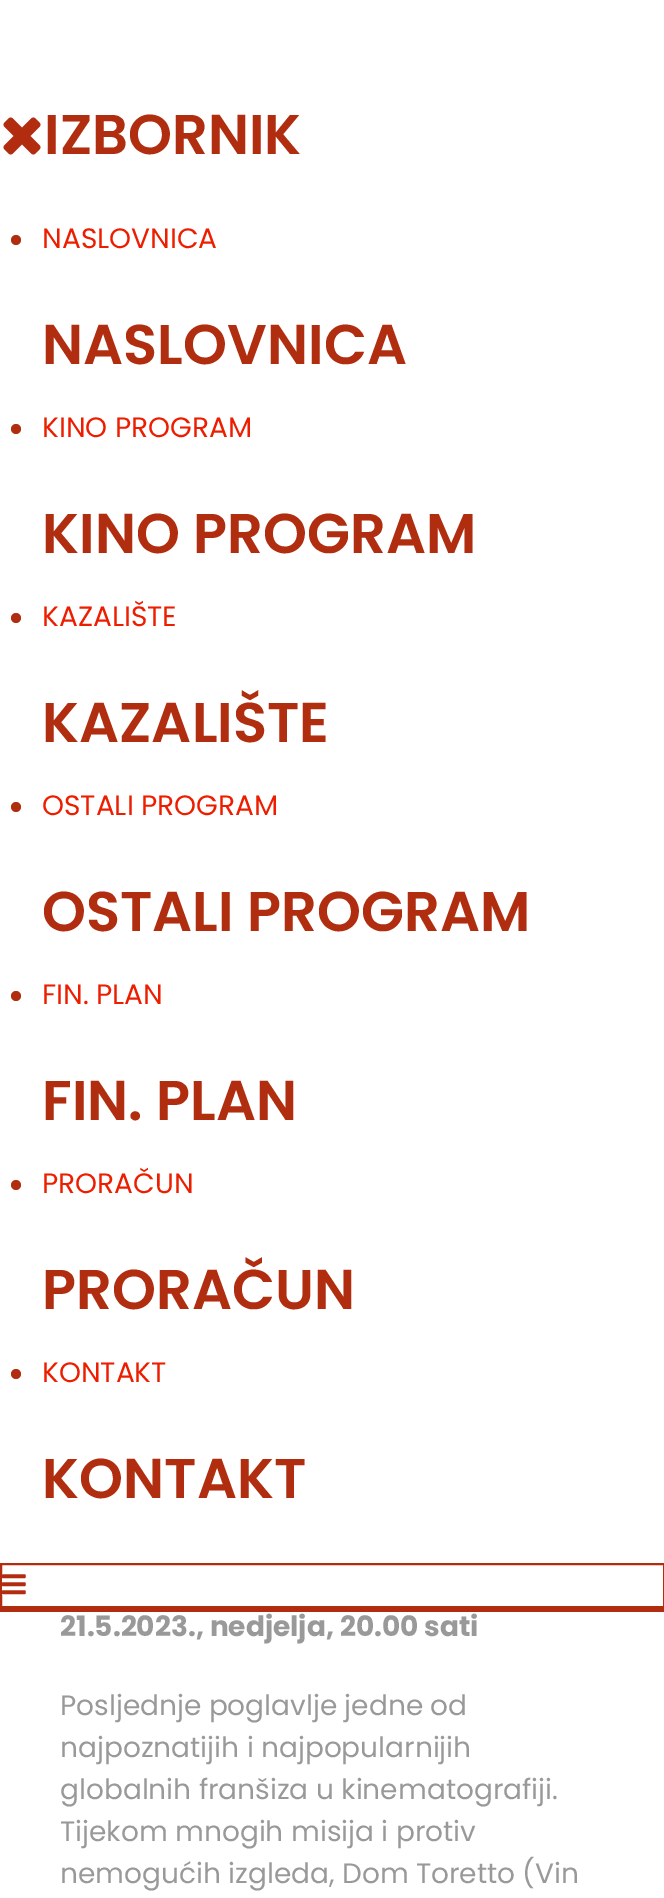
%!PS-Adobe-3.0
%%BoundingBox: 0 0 664 1898
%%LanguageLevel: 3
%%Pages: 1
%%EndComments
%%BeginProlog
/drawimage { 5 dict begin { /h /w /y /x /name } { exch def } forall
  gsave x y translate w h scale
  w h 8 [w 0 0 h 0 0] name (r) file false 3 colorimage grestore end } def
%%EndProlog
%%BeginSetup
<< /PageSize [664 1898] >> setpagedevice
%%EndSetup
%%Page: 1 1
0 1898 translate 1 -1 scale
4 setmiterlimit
1 setgray
0 0 664 1898 rectfill
0.694 0.176 0.059 setrgbcolor
0 1608 664 4 rectfill
(images/1.raw) 3 117 38 38 drawimage
newpath 16 240 5 0 360 arc closepath fill
newpath 16 429 5 0 360 arc closepath fill
newpath 16 618 5 0 360 arc closepath fill
newpath 16 807 5 0 360 arc closepath fill
newpath 16 996 5 0 360 arc closepath fill
newpath 16 1185 5 0 360 arc closepath fill
newpath 16 1374 5 0 360 arc closepath fill
0.698 0.173 0.063 setrgbcolor
2 setlinewidth
1 1564 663 43 rectstroke
(images/2.raw) 2 1574 24 21 drawimage
/Poppins-SemiBold [56 0 0 -56 0 0] selectfont
0.694 0.176 0.059 setrgbcolor
44 154 moveto (IZBORNIK) show
/Poppins-Regular [28 0 0 -28 0 0] selectfont
0.929 0.114 0 setrgbcolor
42 248 moveto (NASLOVNICA) show
/Poppins-SemiBold [56 0 0 -56 0 0] selectfont
0.694 0.176 0.059 setrgbcolor
42 364 moveto (NASLOVNICA) show
/Poppins-Regular [28 0 0 -28 0 0] selectfont
0.929 0.114 0 setrgbcolor
42 437 moveto (KINO PROGRAM) show
/Poppins-SemiBold [56 0 0 -56 0 0] selectfont
0.694 0.176 0.059 setrgbcolor
42 553 moveto (KINO PROGRAM) show
/Poppins-Regular [28 0 0 -28 0 0] selectfont
0.929 0.114 0 setrgbcolor
42 626 moveto (KAZALIŠTE) show
/Poppins-SemiBold [56 0 0 -56 0 0] selectfont
0.694 0.176 0.059 setrgbcolor
42 742 moveto (KAZALIŠTE) show
/Poppins-Regular [28 0 0 -28 0 0] selectfont
0.929 0.114 0 setrgbcolor
42 815 moveto (OSTALI PROGRAM) show
/Poppins-SemiBold [56 0 0 -56 0 0] selectfont
0.694 0.176 0.059 setrgbcolor
42 931 moveto (OSTALI PROGRAM) show
/Poppins-Regular [28 0 0 -28 0 0] selectfont
0.929 0.114 0 setrgbcolor
42 1004 moveto (FIN. PLAN) show
/Poppins-SemiBold [56 0 0 -56 0 0] selectfont
0.694 0.176 0.059 setrgbcolor
42 1120 moveto (FIN. PLAN) show
/Poppins-Regular [28 0 0 -28 0 0] selectfont
0.929 0.114 0 setrgbcolor
42 1193 moveto (PRORAČUN) show
/Poppins-SemiBold [56 0 0 -56 0 0] selectfont
0.694 0.176 0.059 setrgbcolor
42 1309 moveto (PRORAČUN) show
/Poppins-Regular [28 0 0 -28 0 0] selectfont
0.929 0.114 0 setrgbcolor
42 1382 moveto (KONTAKT) show
/Poppins-SemiBold [56 0 0 -56 0 0] selectfont
0.694 0.176 0.059 setrgbcolor
42 1498 moveto (KONTAKT) show
/Poppins-Bold [28 0 0 -28 0 0] selectfont
0.6 setgray
60 1636 moveto (21.5.2023., nedjelja, 20.00 sati) show
/Poppins-Regular [28 0 0 -28 0 0] selectfont
60 1715 moveto (Posljednje poglavlje jedne od) show
60 1757 moveto (najpoznatijih i najpopularnijih) show
60 1799 moveto (globalnih franšiza u kinematografiji.) show
60 1841 moveto (Tijekom mnogih misija i protiv) show
60 1883 moveto (nemogućih izgleda, Dom Toretto \(Vin) show
showpage
%%EOF
